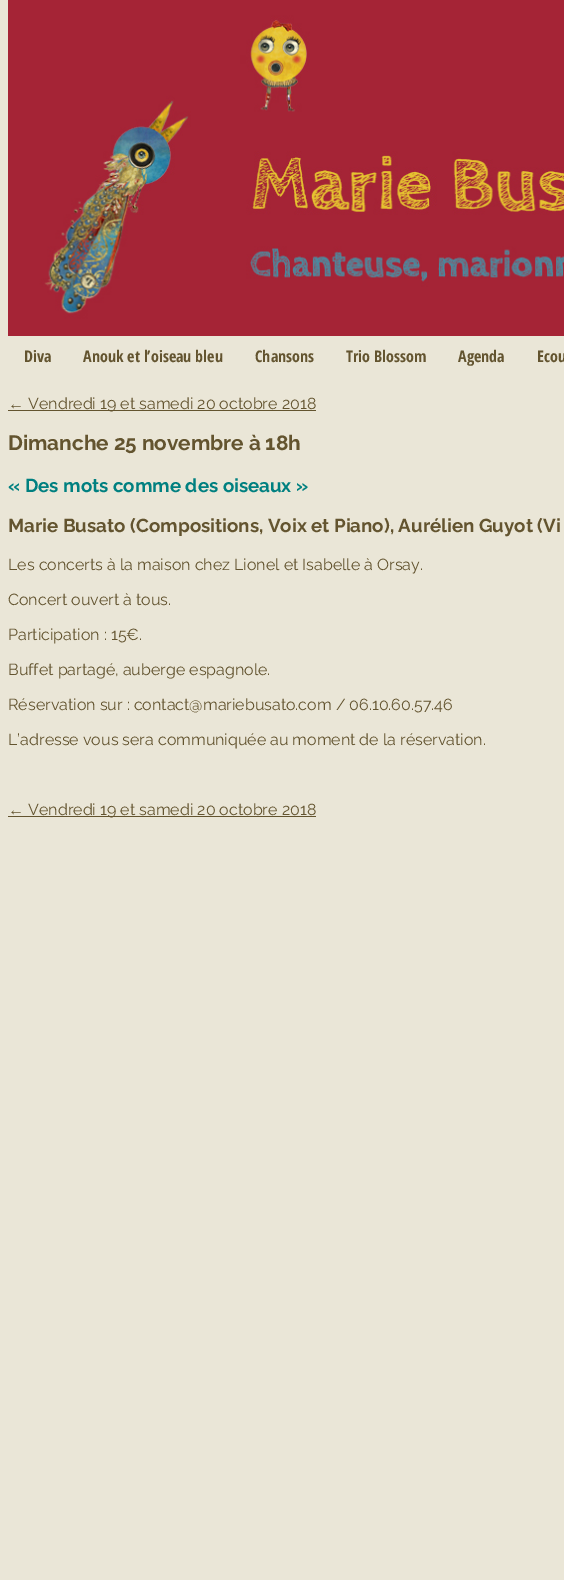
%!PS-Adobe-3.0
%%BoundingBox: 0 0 564 1580
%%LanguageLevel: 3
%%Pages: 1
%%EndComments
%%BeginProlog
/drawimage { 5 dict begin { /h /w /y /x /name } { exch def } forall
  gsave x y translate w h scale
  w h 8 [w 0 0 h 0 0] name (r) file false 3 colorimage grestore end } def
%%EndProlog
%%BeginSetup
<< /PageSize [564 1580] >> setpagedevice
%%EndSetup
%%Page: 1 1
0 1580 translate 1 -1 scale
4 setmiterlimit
0.918 0.902 0.843 setrgbcolor
0 0 564 1580 rectfill
(images/1.raw) 8 0 556 336 drawimage
0.388 0.329 0.184 setrgbcolor
8 410 308 1 rectfill
8 816 308 1 rectfill
/OpenSansCondensed-Bold [16 0 0 -16 0 0] selectfont
24 362 moveto (Diva) show
83 362 moveto (Anouk et l’oiseau bleu) show
255 362 moveto (Chansons) show
346 362 moveto (Trio Blossom) show
458 362 moveto (Agenda) show
537 362 moveto (Ecou) show
/LiberationSans-Regular [16 0 0 -16 0 0] selectfont
8 409 moveto (←) show
/Raleway-Regular [16 0 0 -16 0 0] selectfont
28 409 moveto (Vendredi 19 et samedi 20 octobre 2018) show
/Raleway-Bold [20.75 0 0 -20.75 0 0] selectfont
8 450 moveto (Dimanche 25 novembre à 18h) show
/Raleway-Bold [18.75 0 0 -18.75 0 0] selectfont
0 0.502 0.502 setrgbcolor
8 492 moveto (« Des mots comme des oiseaux ») show
0.388 0.329 0.184 setrgbcolor
8 532 moveto (Marie Busato \(Compositions, Voix et Piano\), Aurélien Guyot \(Vi) show
/Raleway-Regular [16 0 0 -16 0 0] selectfont
8 570 moveto (Les concerts à la maison chez Lionel et Isabelle à Orsay.) show
8 605 moveto (Concert ouvert à tous.) show
8 640 moveto (Participation : 15€.) show
8 675 moveto (Buffet partagé, auberge espagnole.) show
8 710 moveto (Réservation sur : contact@mariebusato.com / 06.10.60.57.46) show
8 745 moveto (L’adresse vous sera communiquée au moment de la réservation.) show
/LiberationSans-Regular [16 0 0 -16 0 0] selectfont
8 815 moveto (←) show
/Raleway-Regular [16 0 0 -16 0 0] selectfont
28 815 moveto (Vendredi 19 et samedi 20 octobre 2018) show
showpage
%%EOF
